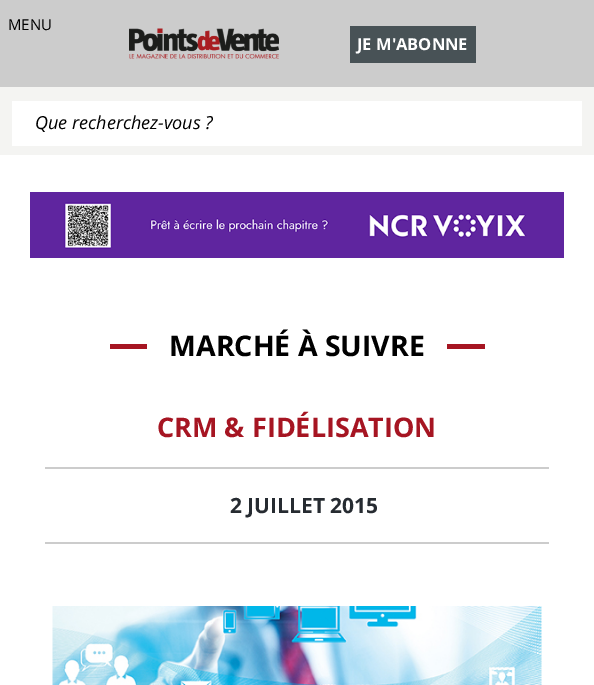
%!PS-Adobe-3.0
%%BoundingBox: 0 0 594 685
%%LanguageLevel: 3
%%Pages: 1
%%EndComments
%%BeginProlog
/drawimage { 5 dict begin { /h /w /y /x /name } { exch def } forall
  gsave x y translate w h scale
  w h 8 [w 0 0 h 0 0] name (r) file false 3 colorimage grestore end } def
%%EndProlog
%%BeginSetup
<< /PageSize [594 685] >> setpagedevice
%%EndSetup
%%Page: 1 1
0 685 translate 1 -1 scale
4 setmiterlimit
1 setgray
0 0 594 685 rectfill
0.8 setgray
0 0 594 87 rectfill
(images/1.raw) 129 28 150 31 drawimage
0.282 0.322 0.337 setrgbcolor
350 26 126 37 rectfill
0.957 0.957 0.949 setrgbcolor
0 87 594 68 rectfill
1 setgray
12 101 570 45 rectfill
(images/2.raw) 30 192 534 66 drawimage
0.651 0.082 0.133 setrgbcolor
110 344 37 5 rectfill
447 344 38 5 rectfill
0.8 setgray
45 467 504 2 rectfill
45 542 504 2 rectfill
(images/3.raw) 52 606 490 79 drawimage
/OpenSans-Regular [15 0 0 -15 0 0] selectfont
0 setgray
8 30 moveto (MENU) show
/OpenSans-Bold [16.5 0 0 -16.5 0 0] selectfont
1 setgray
357 50 moveto (JE M'ABONNE) show
/OpenSans-Italic [18 0 0 -18 0 0] selectfont
0 setgray
35 129 moveto (Que recherchez-vous ?) show
/OpenSans-Bold [28.5 0 0 -28.5 0 0] selectfont
169 356 moveto (MARCHÉ À SUIVRE) show
/OpenSans-Bold [27 0 0 -27 0 0] selectfont
0.651 0.082 0.133 setrgbcolor
157 437 moveto (CRM & FIDÉLISATION) show
/OpenSans-Bold [21 0 0 -21 0 0] selectfont
0.149 0.169 0.192 setrgbcolor
230 513 moveto (2 JUILLET 2015) show
showpage
%%EOF
